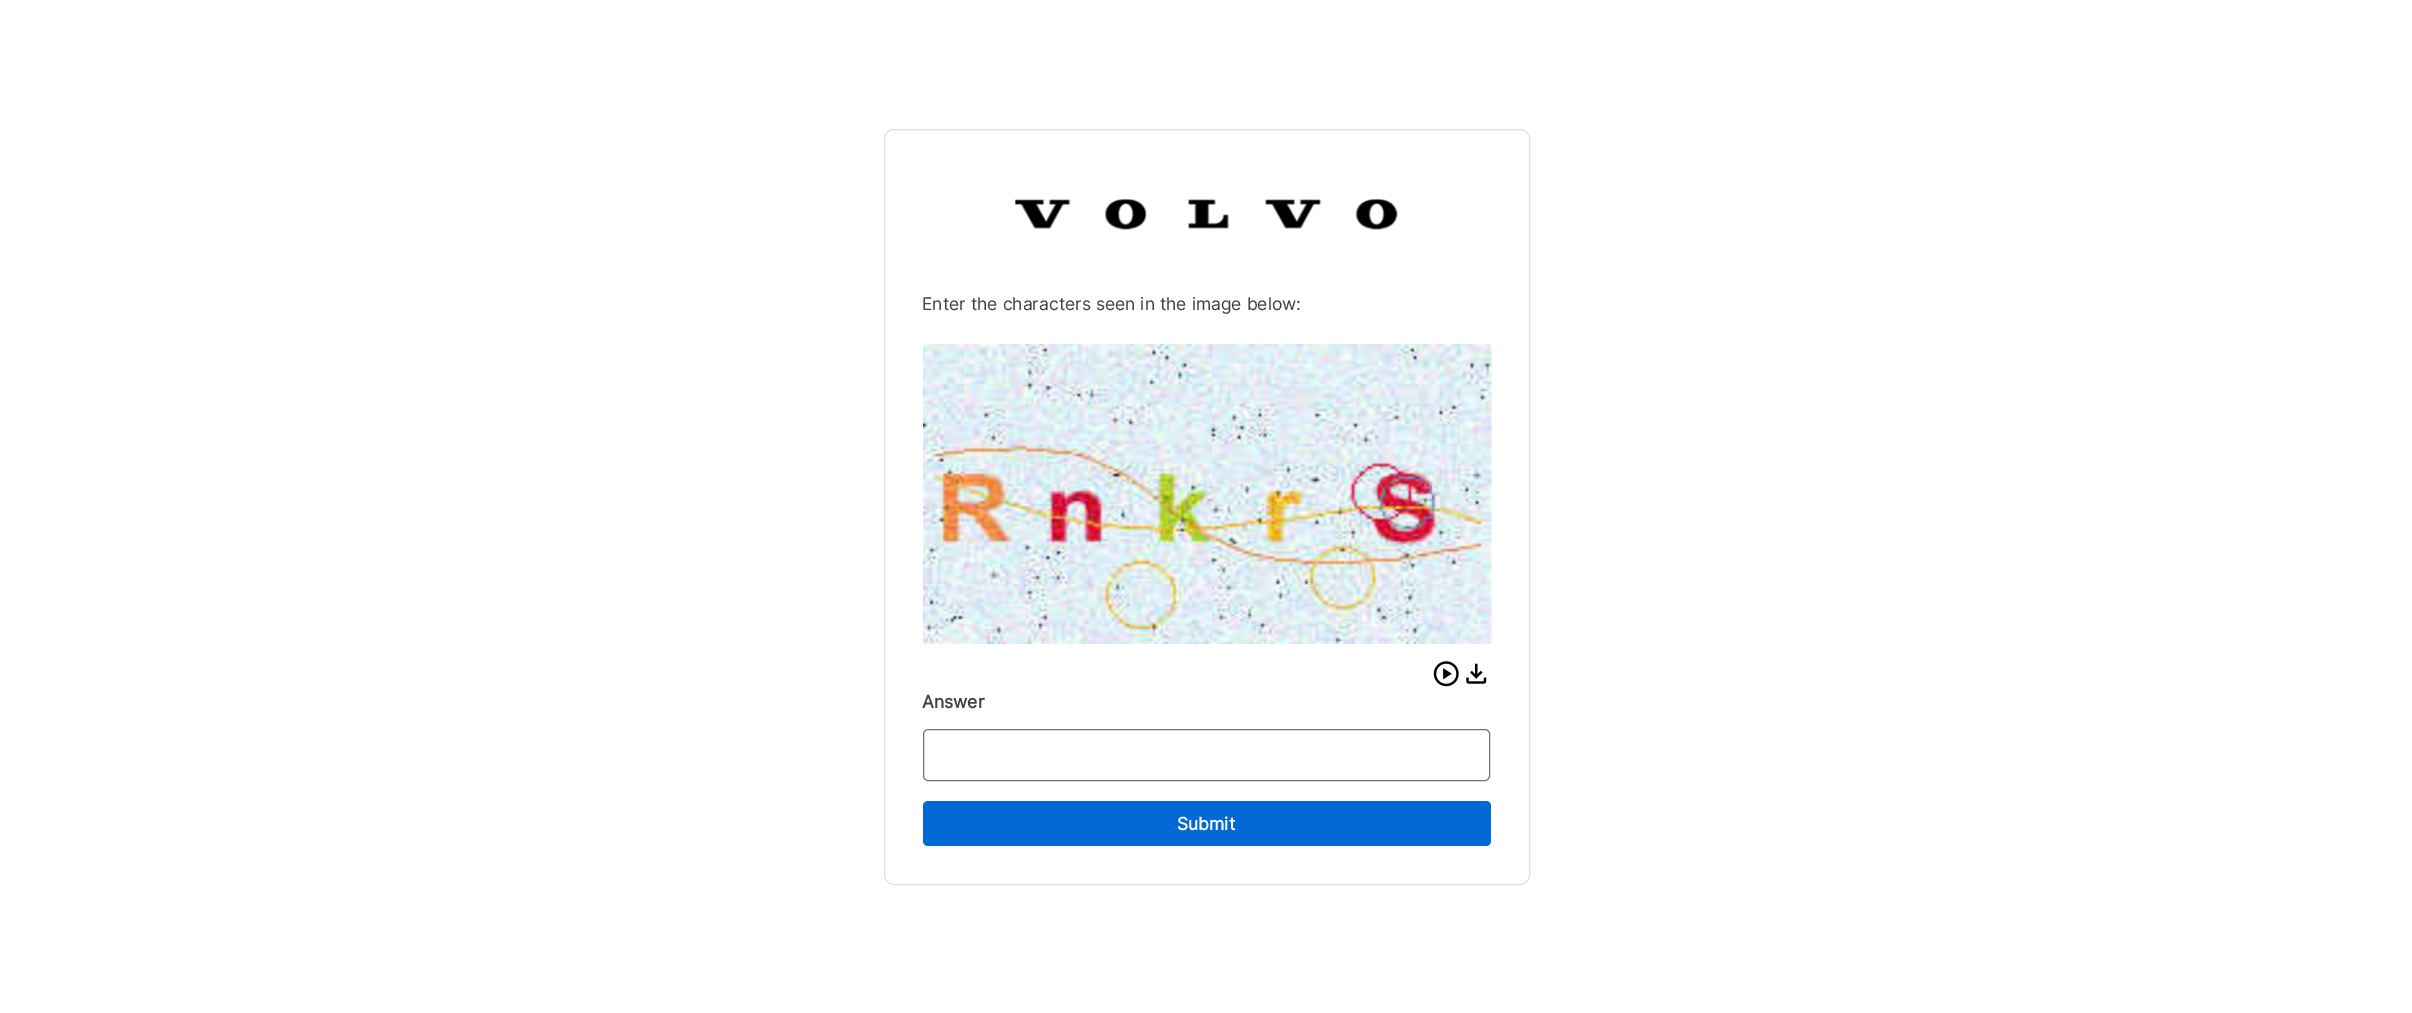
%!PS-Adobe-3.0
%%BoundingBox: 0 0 2412 1013
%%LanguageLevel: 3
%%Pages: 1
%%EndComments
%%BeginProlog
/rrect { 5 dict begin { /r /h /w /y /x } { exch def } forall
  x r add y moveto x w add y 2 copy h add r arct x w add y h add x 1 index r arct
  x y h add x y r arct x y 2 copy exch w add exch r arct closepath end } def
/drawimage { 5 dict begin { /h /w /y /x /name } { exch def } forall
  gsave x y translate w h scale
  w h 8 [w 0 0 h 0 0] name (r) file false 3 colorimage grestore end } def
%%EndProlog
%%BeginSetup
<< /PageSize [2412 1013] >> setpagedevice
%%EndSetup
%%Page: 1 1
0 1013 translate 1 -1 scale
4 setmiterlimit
1 setgray
0 0 2412 1013 rectfill
0.863 0.878 0.894 setrgbcolor
884.5 129.5 645 755 9.5 rrect stroke
(images/1.raw) 1015 199 383 31 drawimage
(images/2.raw) 923 344 569 300 drawimage
(images/3.raw) 1433 661 26 26 drawimage
(images/4.raw) 1466 663 21 21 drawimage
0.404 0.455 0.514 setrgbcolor
923.5 729.5 566 51 4.5 rrect stroke
0 0.412 0.839 setrgbcolor
923 801 568 45 5 rrect fill
/Inter-Regular [17.5 0 0 -17.5 0 0] selectfont
0.227 0.259 0.29 setrgbcolor
922 310 moveto (Enter the characters seen in the image below:) show
/Inter-Bold [17.5 0 0 -17.5 0 0] selectfont
922 708 moveto (Answer) show
1 setgray
1177 830 moveto (Submit) show
showpage
%%EOF
